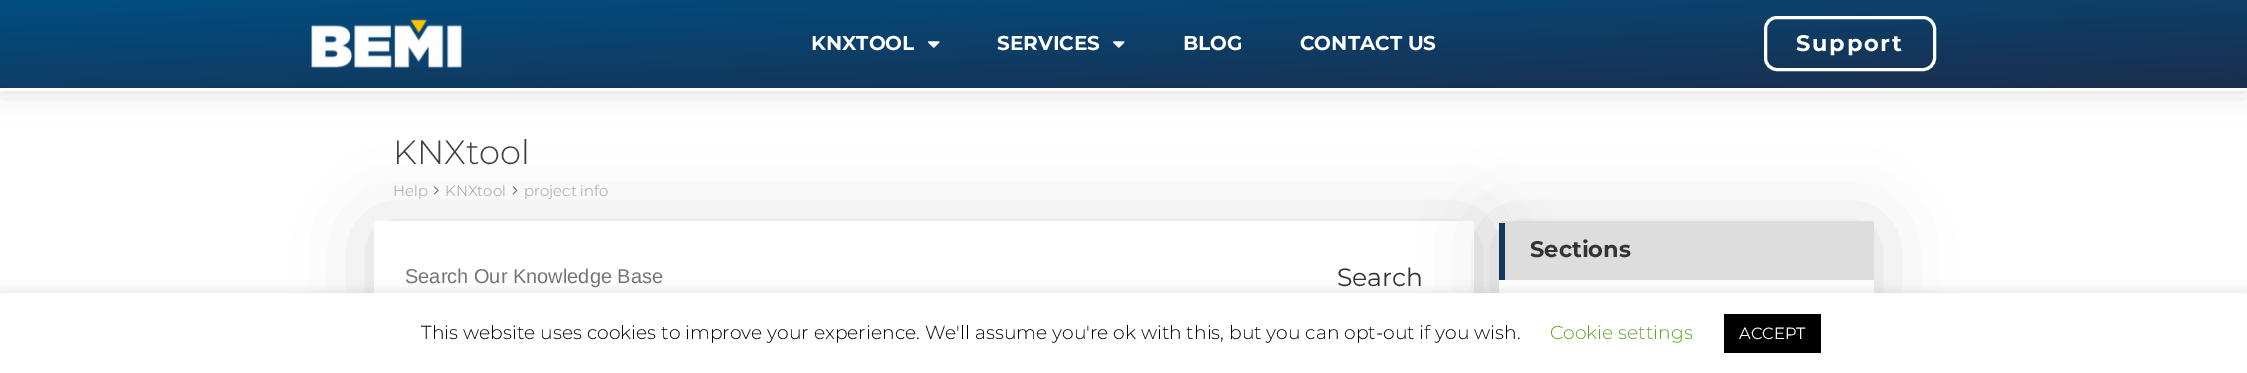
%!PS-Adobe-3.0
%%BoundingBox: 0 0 2247 373
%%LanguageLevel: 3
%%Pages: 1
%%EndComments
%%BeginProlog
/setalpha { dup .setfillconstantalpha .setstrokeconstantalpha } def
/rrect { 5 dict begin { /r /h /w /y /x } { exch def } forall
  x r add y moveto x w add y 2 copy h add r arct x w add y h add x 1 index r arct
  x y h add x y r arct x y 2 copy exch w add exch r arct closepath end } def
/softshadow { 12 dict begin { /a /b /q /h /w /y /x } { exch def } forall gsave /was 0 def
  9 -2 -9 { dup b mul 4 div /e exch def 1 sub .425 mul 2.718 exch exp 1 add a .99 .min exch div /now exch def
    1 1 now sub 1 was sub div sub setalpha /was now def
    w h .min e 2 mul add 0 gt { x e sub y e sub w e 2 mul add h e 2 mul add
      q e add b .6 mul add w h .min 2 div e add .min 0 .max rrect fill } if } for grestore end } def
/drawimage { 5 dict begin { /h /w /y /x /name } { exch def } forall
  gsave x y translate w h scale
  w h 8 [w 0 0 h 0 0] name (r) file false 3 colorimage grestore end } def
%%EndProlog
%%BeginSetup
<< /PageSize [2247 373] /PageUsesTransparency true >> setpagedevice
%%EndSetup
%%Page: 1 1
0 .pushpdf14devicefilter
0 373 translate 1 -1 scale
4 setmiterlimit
1 setgray
0 0 2247 373 rectfill
0 setgray
0 0 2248 90 0 15 0.15 softshadow
gsave newpath 0 0 moveto 2247 0 lineto 2247 88 lineto 0 88 lineto closepath clip newpath
<< /ShadingType 2 /ColorSpace /DeviceRGB /Coords [1127 127 1121 -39] /Extend [true true] /Function << /FunctionType 2 /Domain [0 1] /C0 [0.106 0.18 0.302] /C1 [0 0.306 0.506] /N 1 >> >> shfill grestore
1 setgray
0 88 2247 3 rectfill
(images/1.raw) 311 19 151 49 drawimage
(images/2.raw) 928 41 12 7 drawimage
(images/3.raw) 1113 41 12 7 drawimage
3 setlinewidth
1765.5 17.5 169 52 11.5 rrect stroke
(images/4.raw) 433 186 6 9 drawimage
(images/5.raw) 512 186 6 9 drawimage
0 setgray
374 228 1100 112 2.5 37.5 0.15 softshadow
1 setgray
374 221 1100 113 2.5 rrect fill
0 setgray
1499 228 375 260 2.5 37.5 0.15 softshadow
1 setgray
1499 221 375 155 2.5 rrect fill
0.867 setgray
newpath 1501.5 221 moveto 1871.5 221 lineto 1873 221 1874 222 1874 223.5 curveto 1874 280 lineto 1499 280 lineto 1499 223.5 lineto 1499 222 1500 221 1501.5 221 curveto closepath fill
0.071 0.22 0.365 setrgbcolor
1499 223 6 57 rectfill
0.675 0.671 0.671 setrgbcolor
0 291 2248 82 0 6 0.3 softshadow
1 setgray
0 293 2247 80 rectfill
0 setgray
1724 314 97 39 rectfill
/Montserrat-Bold [20 0 0 -20 0 0] selectfont
1 setgray
811 50 moveto (KNXTOOL) show
997 50 moveto (SERVICES) show
1183 50 moveto (BLOG) show
1300 50 moveto (CONTACT US) show
/Montserrat-Bold [22.5 0 0 -22.5 0 0] selectfont
1796 51 moveto 1.75 0 (Support) ashow
/Montserrat-Light [33.75 0 0 -33.75 0 0] selectfont
0.251 setgray
393 164 moveto (KNXtool) show
/Montserrat-Light [15 0 0 -15 0 0] selectfont
0.6 setgray
393 196 moveto (Help) show
445 196 moveto (KNXtool) show
524 196 moveto (project info) show
/Montserrat-Bold [22.5 0 0 -22.5 0 0] selectfont
0.2 setgray
1530 257 moveto (Sections) show
/LiberationSans-Regular [20 0 0 -20 0 0] selectfont
0.459 setgray
405 283 moveto (Search Our Knowledge Base) show
/Montserrat-Regular [25 0 0 -25 0 0] selectfont
0.2 setgray
1337 286 moveto (Search) show
/Montserrat-Light [18.75 0 0 -18.75 0 0] selectfont
0 setgray
421 339 moveto (This website uses cookies to improve your experience. We'll assume you're ok with this, but you can opt-out if you wish.) show
0.384 0.639 0.161 setrgbcolor
1550 339 moveto (Cookie settings) show
/Montserrat-Regular [16.25 0 0 -16.25 0 0] selectfont
1 setgray
1739 339 moveto (ACCEPT) show
.poppdf14devicefilter showpage
%%EOF
